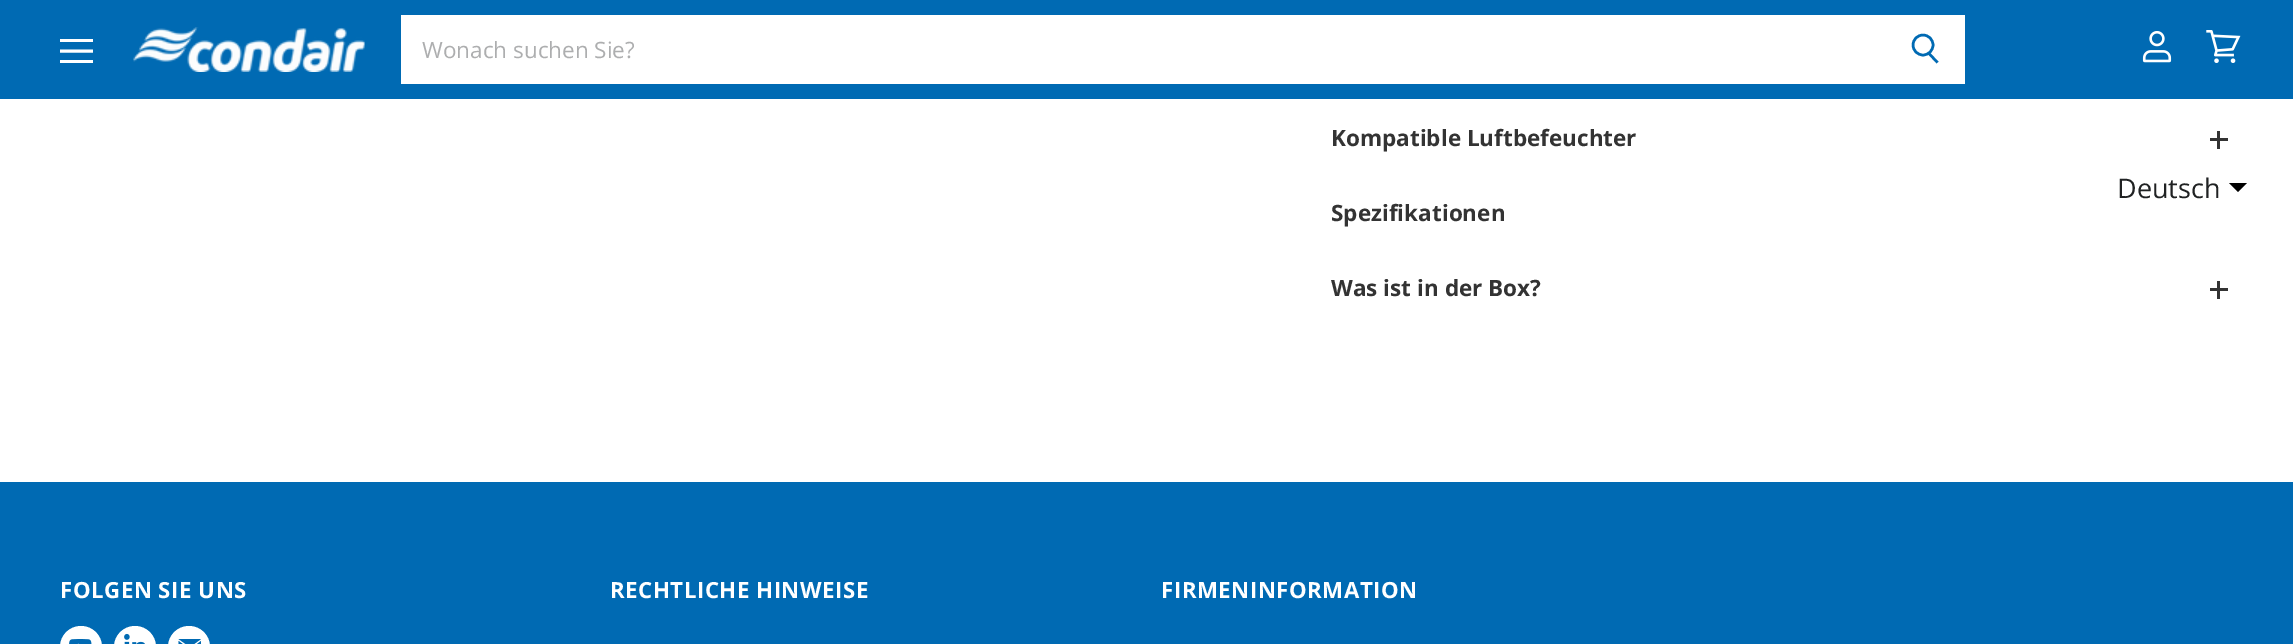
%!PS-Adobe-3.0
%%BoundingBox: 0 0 2293 644
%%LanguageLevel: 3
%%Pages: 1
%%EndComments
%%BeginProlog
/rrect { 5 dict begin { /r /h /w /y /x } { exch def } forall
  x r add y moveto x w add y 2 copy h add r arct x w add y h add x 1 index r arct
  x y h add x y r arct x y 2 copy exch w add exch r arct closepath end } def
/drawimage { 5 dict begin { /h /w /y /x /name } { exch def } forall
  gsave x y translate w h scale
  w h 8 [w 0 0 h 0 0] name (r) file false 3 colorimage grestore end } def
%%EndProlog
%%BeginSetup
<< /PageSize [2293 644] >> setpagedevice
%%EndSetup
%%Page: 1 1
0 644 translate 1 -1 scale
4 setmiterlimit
1 setgray
0 0 2293 644 rectfill
0 0.416 0.702 setrgbcolor
0 0 2293 99 rectfill
1 setgray
60 39 33 3 rectfill
3 setlinewidth
2 setlinecap
1 setlinejoin
newpath 91.5 51 moveto 61.5 51 lineto stroke
60 60 33 3 rectfill
(images/1.raw) 133 27 232 45 drawimage
401 15 1564 69 rectfill
0 0.416 0.702 setrgbcolor
2.5 setlinewidth
0 setlinecap
0 setlinejoin
newpath 1937.5 62.5 moveto 1929 53.5 lineto stroke
newpath 1923 45 10 0 360 arc closepath stroke
(images/2.raw) 2142 31 30 32 drawimage
(images/3.raw) 2206 30 35 33 drawimage
0.2 setgray
2210 138 18 3 rectfill
2217 131 3 18 rectfill
2210 288 18 3 rectfill
2217 281 3 18 rectfill
0 setgray
newpath 2229 183 moveto 2247 183 lineto 2238 192 lineto closepath fill
0 0.416 0.702 setrgbcolor
0 482 2293 162 rectfill
1 setgray
60 626 42 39 21 rrect fill
(images/4.raw) 69 639 23 5 drawimage
114 626 42 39 21 rrect fill
(images/5.raw) 124 633 21 11 drawimage
168 626 42 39 21 rrect fill
0 0.416 0.702 setrgbcolor
newpath 201 639 moveto 178.5 639 lineto 190 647 lineto closepath 190 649.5 moveto 178.5 641 lineto 178.5 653.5 lineto 201 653.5 lineto 201 641 lineto closepath eofill
/OpenSans-Regular [22.5 0 0 -22.5 0 0] selectfont
0.678 0.682 0.686 setrgbcolor
422 58 moveto (Wonach suchen Sie?) show
/OpenSans-Bold [22.5 0 0 -22.5 0 0] selectfont
0.2 setgray
1331 146 moveto (Kompatible Luftbefeuchter) show
1331 221 moveto (Spezifikationen) show
1331 296 moveto (Was ist in der Box?) show
/OpenSans-Regular [27 0 0 -27 0 0] selectfont
0.125 0.133 0.137 setrgbcolor
2117 198 moveto (Deutsch) show
/OpenSans-Bold [22.25 0 0 -22.25 0 0] selectfont
1 setgray
60 598 moveto 0.5 0 (FOLGEN SIE UNS) ashow
610 598 moveto 0.5 0 (RECHTLICHE HINWEISE) ashow
1161 598 moveto 0.5 0 (FIRMENINFORMATION) ashow
showpage
%%EOF
